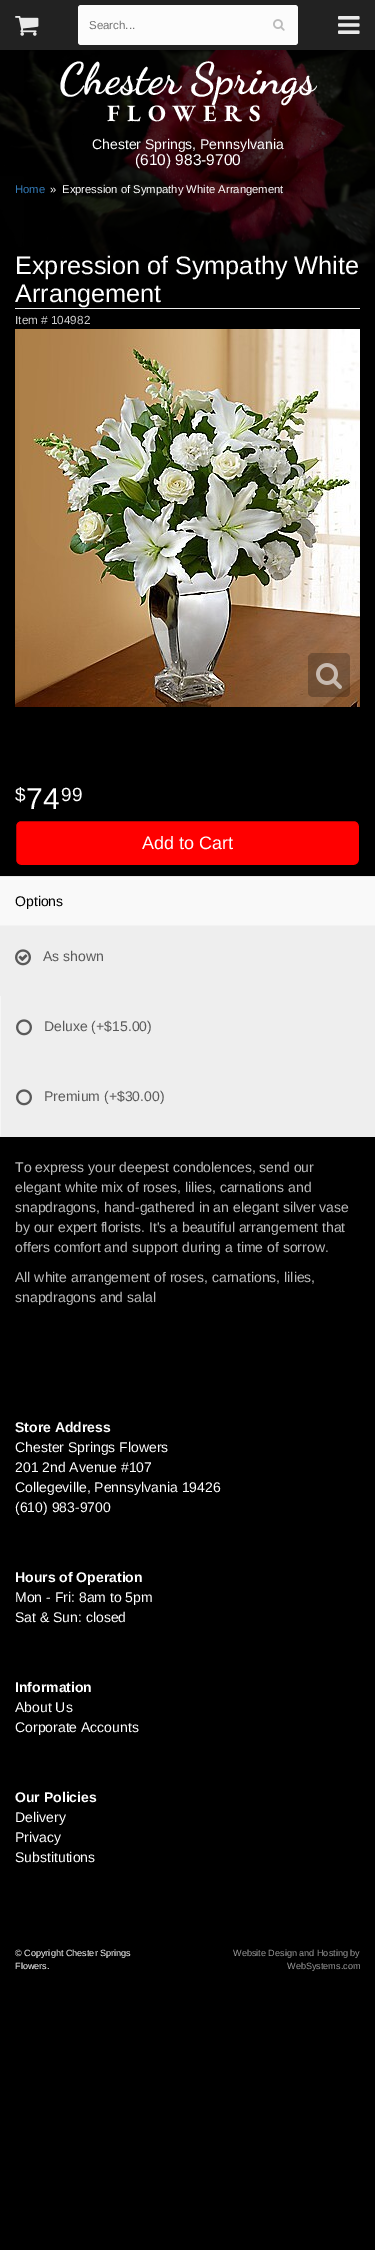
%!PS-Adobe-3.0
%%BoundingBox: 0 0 375 2250
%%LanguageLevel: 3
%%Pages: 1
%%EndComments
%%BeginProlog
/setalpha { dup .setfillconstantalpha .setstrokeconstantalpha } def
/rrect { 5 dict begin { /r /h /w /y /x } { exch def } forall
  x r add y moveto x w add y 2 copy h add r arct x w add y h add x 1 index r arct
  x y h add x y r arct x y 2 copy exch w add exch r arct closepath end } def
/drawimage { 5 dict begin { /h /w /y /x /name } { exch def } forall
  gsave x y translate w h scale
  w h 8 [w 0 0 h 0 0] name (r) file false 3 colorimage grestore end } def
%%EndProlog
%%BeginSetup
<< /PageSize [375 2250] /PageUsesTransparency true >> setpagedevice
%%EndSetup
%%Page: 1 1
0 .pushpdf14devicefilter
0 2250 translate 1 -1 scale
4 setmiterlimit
0 setgray
0 0 375 2250 rectfill
(images/1.raw) 0 50 375 214 drawimage
0.133 setgray
0 0 375 50 rectfill
(images/2.raw) 15 16 24 20 drawimage
0.988 setgray
78 5 220 40 3 rrect fill
(images/3.raw) 273 19 12 12 drawimage
(images/4.raw) 338 16 22 18 drawimage
0.933 setgray
15 308 345 1 rectfill
(images/5.raw) 15 329 345 378 drawimage
0.24 setalpha
0 setgray
308 653 42 44 5 rrect fill
1 setalpha
(images/6.raw) 316 663 26 26 drawimage
1 0 0 setrgbcolor
15.5 820.5 344 45 5.5 rrect gsave fill grestore
0 setgray
stroke
0.976 setgray
0 877 375 48 rectfill
0.902 setgray
0 876 375 1 rectfill
0.953 setgray
0 925 375 1 rectfill
0.933 setgray
0 926 375 211 rectfill
(images/7.raw) 15 949 16 17 drawimage
0.965 setgray
0 996 1 140 rectfill
(images/8.raw) 16 1019 16 17 drawimage
(images/8.raw) 16 1089 16 17 drawimage
/LiberationSans-Regular [11.5 0 0 -11.5 0 0] selectfont
0.459 setgray
89 29 moveto (Search...) show
/DancingScript-Bold [44 0 0 -44 0 0] selectfont
1 setgray
59 93 moveto (Chester Springs) show
/EBGaramond-Bold [23.5 0 0 -23.5 0 0] selectfont
107 121 moveto 7 0 (FLOWERS) ashow
/LiberationSans-Regular [14 0 0 -14 0 0] selectfont
92 149 moveto (Chester Springs, Pennsylvania) show
/LiberationSans-Regular [15.5 0 0 -15.5 0 0] selectfont
135 165 moveto (\(610\) 983-9700) show
/LiberationSans-Regular [11.25 0 0 -11.25 0 0] selectfont
0.2 0.478 0.718 setrgbcolor
15 193 moveto (Home) show
1 setgray
50 193 moveto (») show
62 193 moveto (Expression of Sympathy White Arrangement) show
/LiberationSans-Regular [25.25 0 0 -25.25 0 0] selectfont
15 274 moveto (Expression of Sympathy White) show
15 302 moveto (Arrangement) show
/LiberationSans-Regular [11.75 0 0 -11.75 0 0] selectfont
0.8 setgray
15 324 moveto (Item # 104982) show
/LiberationSans-Regular [19 0 0 -19 0 0] selectfont
1 setgray
15 801 moveto ($) show
/LiberationSans-Regular [30 0 0 -30 0 0] selectfont
26 809 moveto (74) show
/LiberationSans-Regular [19 0 0 -19 0 0] selectfont
61 801 moveto (99) show
/LiberationSans-Regular [18 0 0 -18 0 0] selectfont
142 849 moveto (Add to Cart) show
/LiberationSans-Regular [14 0 0 -14 0 0] selectfont
0 setgray
15 906 moveto (Options) show
0.349 setgray
43 961 moveto (As shown) show
44 1031 moveto (Deluxe \(+$15.00\)) show
44 1101 moveto (Premium \(+$30.00\)) show
0.733 setgray
15 1172 moveto (To express your deepest condolences, send our) show
15 1192 moveto (elegant white mix of roses, lilies, carnations and) show
15 1212 moveto (snapdragons, hand-gathered in an elegant silver vase) show
15 1232 moveto (by our expert florists. It's a beautiful arrangement that) show
15 1252 moveto (offers comfort and support during a time of sorrow.) show
15 1282 moveto (All white arrangement of roses, carnations, lilies,) show
15 1302 moveto (snapdragons and salal) show
/LiberationSans-Bold [14 0 0 -14 0 0] selectfont
1 setgray
15 1432 moveto (Store Address) show
/LiberationSans-Regular [14 0 0 -14 0 0] selectfont
15 1452 moveto (Chester Springs Flowers) show
15 1472 moveto (201 2nd Avenue #107) show
15 1492 moveto (Collegeville, Pennsylvania 19426) show
15 1512 moveto (\(610\) 983-9700) show
/LiberationSans-Bold [14 0 0 -14 0 0] selectfont
15 1582 moveto (Hours of Operation) show
/LiberationSans-Regular [14 0 0 -14 0 0] selectfont
15 1602 moveto (Mon - Fri: 8am to 5pm) show
15 1622 moveto (Sat & Sun: closed) show
/LiberationSans-Bold [14 0 0 -14 0 0] selectfont
15 1692 moveto (Information) show
/LiberationSans-Regular [14 0 0 -14 0 0] selectfont
15 1712 moveto (About Us) show
15 1732 moveto (Corporate Accounts) show
/LiberationSans-Bold [14 0 0 -14 0 0] selectfont
15 1802 moveto (Our Policies) show
/LiberationSans-Regular [14 0 0 -14 0 0] selectfont
15 1822 moveto (Delivery) show
15 1842 moveto (Privacy) show
15 1862 moveto (Substitutions) show
/LiberationSans-Regular [9.1 0 0 -9.1 0 0] selectfont
15 1956 moveto (© Copyright Chester Springs) show
15 1969 moveto (Flowers.) show
0.6 setgray
233 1956 moveto (Website Design and Hosting by) show
287 1969 moveto (WebSystems.com) show
.poppdf14devicefilter showpage
%%EOF
